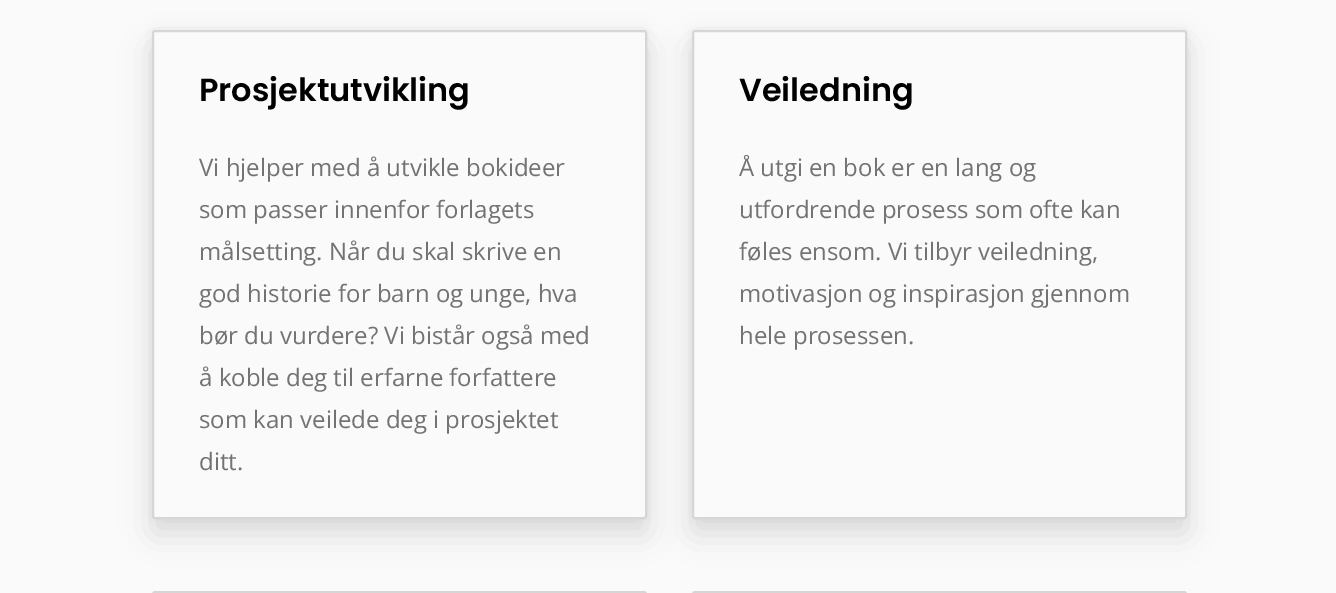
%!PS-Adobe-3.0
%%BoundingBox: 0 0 1336 593
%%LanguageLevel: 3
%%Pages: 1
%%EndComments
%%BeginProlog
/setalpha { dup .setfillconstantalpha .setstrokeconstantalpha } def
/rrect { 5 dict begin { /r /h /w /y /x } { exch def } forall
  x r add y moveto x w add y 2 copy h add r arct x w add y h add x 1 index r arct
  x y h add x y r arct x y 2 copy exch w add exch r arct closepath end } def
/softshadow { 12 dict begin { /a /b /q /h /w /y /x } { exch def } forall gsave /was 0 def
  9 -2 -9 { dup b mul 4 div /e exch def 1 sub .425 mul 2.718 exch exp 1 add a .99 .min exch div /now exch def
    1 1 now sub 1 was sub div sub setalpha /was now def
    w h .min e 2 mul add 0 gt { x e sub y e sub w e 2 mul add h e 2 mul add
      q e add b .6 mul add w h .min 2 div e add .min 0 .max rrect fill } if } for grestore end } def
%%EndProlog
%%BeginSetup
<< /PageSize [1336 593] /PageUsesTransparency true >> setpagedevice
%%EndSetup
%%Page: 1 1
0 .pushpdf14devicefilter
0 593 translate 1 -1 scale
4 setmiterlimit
0.98 setgray
0 0 1336 593 rectfill
0 setgray
152 30 495 489 3 4.5 0.06 softshadow
152 45 495 489 3 15 0.12 softshadow
0.98 setgray
153 31 493 487 2 rrect gsave fill grestore
0.839 setgray
2 setlinewidth
stroke
0 setgray
692 30 495 489 3 4.5 0.06 softshadow
692 45 495 489 3 15 0.12 softshadow
0.98 setgray
693 31 493 487 2 rrect gsave fill grestore
0.839 setgray
stroke
153 592 493 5 2 rrect stroke
693 592 493 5 2 rrect stroke
/Poppins-SemiBold [32 0 0 -32 0 0] selectfont
0 setgray
199 101 moveto (Prosjektutvikling) show
/OpenSans-Regular [24 0 0 -24 0 0] selectfont
0.451 setgray
199 176 moveto (Vi hjelper med å utvikle bokideer) show
199 218 moveto (som passer innenfor forlagets) show
199 260 moveto (målsetting. Når du skal skrive en) show
199 302 moveto (god historie for barn og unge, hva) show
199 344 moveto (bør du vurdere? Vi bistår også med) show
199 386 moveto (å koble deg til erfarne forfattere) show
199 428 moveto (som kan veilede deg i prosjektet) show
199 470 moveto (ditt.) show
/Poppins-SemiBold [32 0 0 -32 0 0] selectfont
0 setgray
739 101 moveto (Veiledning) show
/OpenSans-Regular [24 0 0 -24 0 0] selectfont
0.451 setgray
739 176 moveto (Å utgi en bok er en lang og) show
739 218 moveto (utfordrende prosess som ofte kan) show
739 260 moveto (føles ensom. Vi tilbyr veiledning,) show
739 302 moveto (motivasjon og inspirasjon gjennom) show
739 344 moveto (hele prosessen.) show
.poppdf14devicefilter showpage
%%EOF
